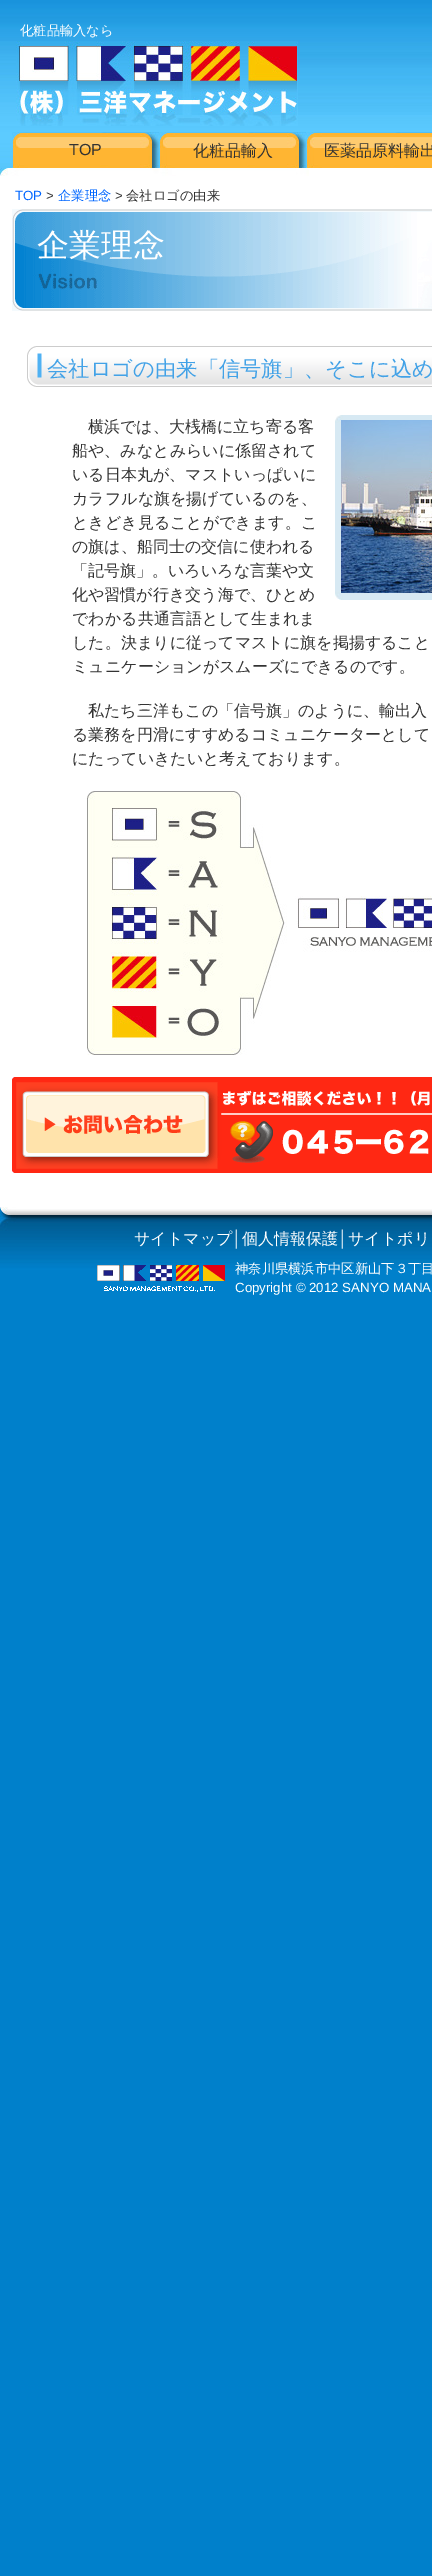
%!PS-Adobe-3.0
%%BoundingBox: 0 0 432 2576
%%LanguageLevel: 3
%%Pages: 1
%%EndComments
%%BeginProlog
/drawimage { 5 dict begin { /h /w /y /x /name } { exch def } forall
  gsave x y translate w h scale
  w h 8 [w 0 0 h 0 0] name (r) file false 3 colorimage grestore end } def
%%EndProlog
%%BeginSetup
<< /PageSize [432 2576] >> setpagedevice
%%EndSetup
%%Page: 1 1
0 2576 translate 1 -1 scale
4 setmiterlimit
1 setgray
0 0 432 2576 rectfill
(images/1.raw) 0 0 432 2576 drawimage
(images/2.raw) 298 52 134 63 drawimage
(images/3.raw) 0 41 298 85 drawimage
0 168 432 1039 rectfill
(images/4.raw) 0 132 12 36 drawimage
(images/5.raw) 12 132 147 36 drawimage
(images/5.raw) 159 132 147 36 drawimage
(images/6.raw) 306 132 126 36 drawimage
(images/7.raw) 0 168 309 8 drawimage
(images/8.raw) 12 209 420 102 drawimage
(images/9.raw) 27 346 405 41 drawimage
(images/10.raw) 335 415 97 185 drawimage
(images/11.raw) 341 420 91 173 drawimage
(images/12.raw) 87 791 345 264 drawimage
(images/13.raw) 12 1077 420 96 drawimage
(images/14.raw) 0 1207 432 73 drawimage
(images/15.raw) 97 1265 128 27 drawimage
/WenQuanYiZenHei-Medium [13.3 0 0 -13.3 0 0] selectfont
20 35 moveto (化粧品輸入なら) show
/LiberationSans-Regular [16 0 0 -16 0 0] selectfont
0.2 setgray
69 155 moveto (TOP) show
/WenQuanYiZenHei-Medium [16 0 0 -16 0 0] selectfont
193 156 moveto (化粧品輸入) show
324 156 moveto (医薬品原料輸出) show
/LiberationSans-Regular [13.3 0 0 -13.3 0 0] selectfont
0 0.4 1 setrgbcolor
15 200 moveto (TOP) show
0.2 setgray
46 200 moveto (>) show
/WenQuanYiZenHei-Medium [13.3 0 0 -13.3 0 0] selectfont
0 0.4 1 setrgbcolor
58 200 moveto (企業理念) show
/LiberationSans-Regular [13.3 0 0 -13.3 0 0] selectfont
0.2 setgray
115 200 moveto (>) show
/WenQuanYiZenHei-Medium [13.3 0 0 -13.3 0 0] selectfont
126 200 moveto (会社ロゴの由来) show
/WenQuanYiZenHei-Medium [32 0 0 -32 0 0] selectfont
1 setgray
37 256 moveto (企業理念) show
/WenQuanYiZenHei-Medium [21.3 0 0 -21.3 0 0] selectfont
0.259 0.635 0.906 setrgbcolor
47 376 moveto (会社ロゴの由来「信号旗」、そこに込め) show
/WenQuanYiZenHei-Medium [16 0 0 -16 0 0] selectfont
0.2 setgray
88 432 moveto (横浜では、大桟橋に立ち寄る客) show
72 456 moveto (船や、みなとみらいに係留されて) show
72 480 moveto (いる日本丸が、マストいっぱいに) show
72 504 moveto (カラフルな旗を揚げているのを、) show
72 528 moveto (ときどき見ることができます。こ) show
72 552 moveto (の旗は、船同士の交信に使われる) show
72 576 moveto (「記号旗」。いろいろな言葉や文) show
72 600 moveto (化や習慣が行き交う海で、ひとめ) show
72 624 moveto (でわかる共通言語として生まれま) show
72 648 moveto (した。決まりに従ってマストに旗を掲揚すること) show
72 672 moveto (ミュニケーションがスムーズにできるのです。) show
88 716 moveto (私たち三洋もこの「信号旗」のように、輸出入) show
72 740 moveto (る業務を円滑にすすめるコミュニケーターとして) show
72 764 moveto (にたっていきたいと考えております。) show
1 setgray
134 1244 moveto (サイトマップ) show
/LiberationSans-Regular [16 0 0 -16 0 0] selectfont
232 1244 moveto (│) show
/WenQuanYiZenHei-Medium [16 0 0 -16 0 0] selectfont
242 1244 moveto (個人情報保護) show
/LiberationSans-Regular [16 0 0 -16 0 0] selectfont
338 1244 moveto (│) show
/WenQuanYiZenHei-Medium [16 0 0 -16 0 0] selectfont
348 1244 moveto (サイトポリ) show
/WenQuanYiZenHei-Medium [13.3 0 0 -13.3 0 0] selectfont
235 1273 moveto (神奈川県横浜市中区新山下３丁目) show
/LiberationSans-Regular [13.3 0 0 -13.3 0 0] selectfont
235 1292 moveto (Copyright © 2012 SANYO MANA) show
showpage
%%EOF
